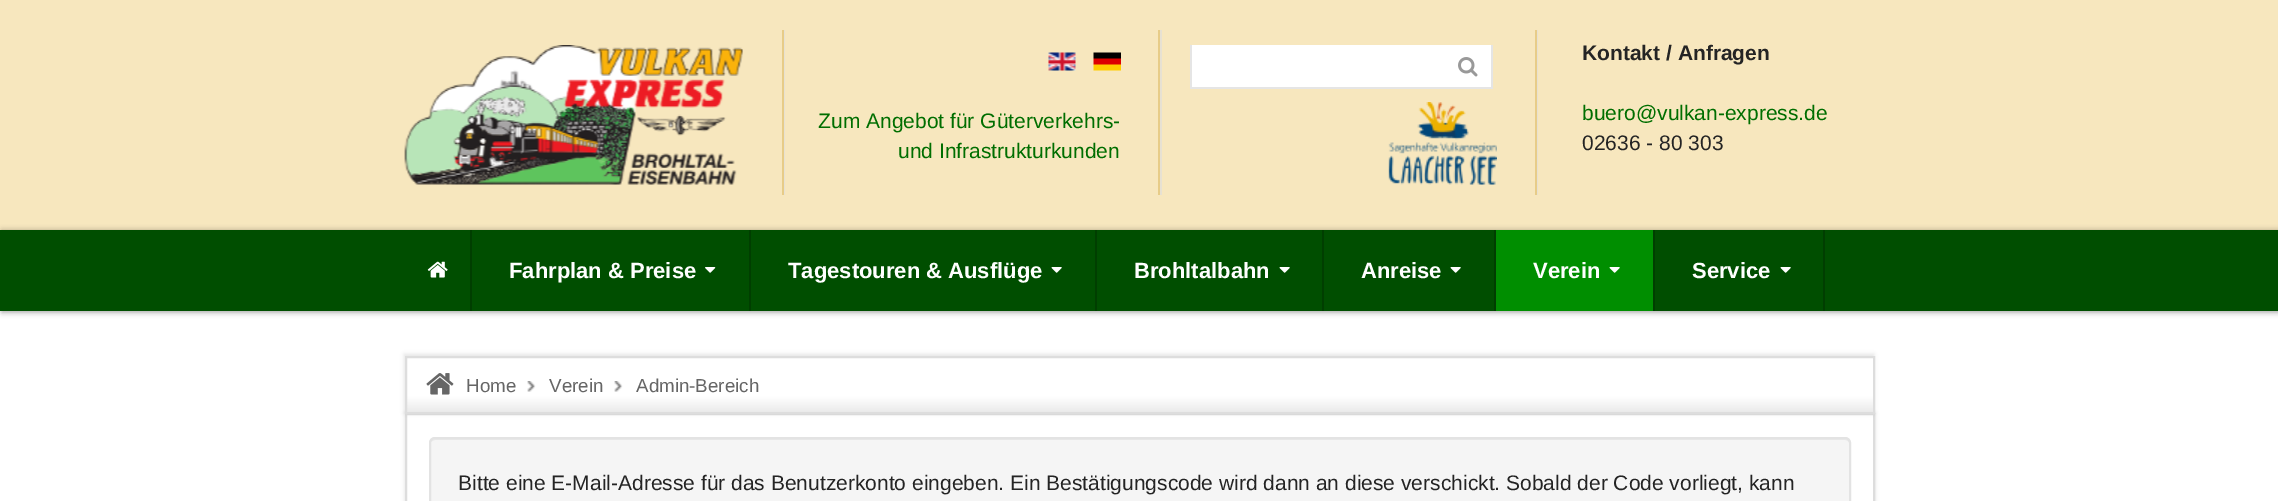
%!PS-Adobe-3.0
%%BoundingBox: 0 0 2278 501
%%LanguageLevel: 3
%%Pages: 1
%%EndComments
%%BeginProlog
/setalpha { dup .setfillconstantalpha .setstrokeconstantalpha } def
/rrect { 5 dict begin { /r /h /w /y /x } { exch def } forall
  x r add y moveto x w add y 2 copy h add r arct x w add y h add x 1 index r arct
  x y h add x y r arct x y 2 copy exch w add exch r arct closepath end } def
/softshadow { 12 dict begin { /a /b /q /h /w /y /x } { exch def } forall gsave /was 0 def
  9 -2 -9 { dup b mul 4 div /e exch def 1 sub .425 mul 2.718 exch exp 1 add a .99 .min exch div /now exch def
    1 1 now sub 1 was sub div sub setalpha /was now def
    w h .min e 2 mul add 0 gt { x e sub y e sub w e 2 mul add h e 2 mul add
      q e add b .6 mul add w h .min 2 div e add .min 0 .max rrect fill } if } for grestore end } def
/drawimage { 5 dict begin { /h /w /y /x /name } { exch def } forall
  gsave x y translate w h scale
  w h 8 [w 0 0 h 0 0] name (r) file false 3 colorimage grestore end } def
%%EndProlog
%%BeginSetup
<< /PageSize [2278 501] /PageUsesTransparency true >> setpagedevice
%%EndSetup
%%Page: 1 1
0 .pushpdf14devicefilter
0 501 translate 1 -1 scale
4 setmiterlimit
1 setgray
0 0 2278 501 rectfill
0.969 0.906 0.745 setrgbcolor
0 0 2278 230 rectfill
(images/1.raw) 404 45 339 140 drawimage
0.906 0.882 0.824 setrgbcolor
784 30 1 165 rectfill
0.906 0.8 0.533 setrgbcolor
782 30 2 165 rectfill
(images/2.raw) 1048 52 28 19 drawimage
(images/3.raw) 1093 52 28 19 drawimage
0.906 0.882 0.824 setrgbcolor
1160 30 2 165 rectfill
0.906 0.8 0.533 setrgbcolor
1158 30 2 165 rectfill
1 setgray
1192 45 299 42 rectfill
0.898 setgray
1491 45 2 44 rectfill
1190 87 303 2 rectfill
1190 45 2 44 rectfill
(images/4.raw) 1458 57 20 20 drawimage
(images/5.raw) 1388 102 109 83 drawimage
0.906 0.882 0.824 setrgbcolor
1537 30 1 165 rectfill
0.906 0.8 0.533 setrgbcolor
1535 30 2 165 rectfill
0 setgray
2 231 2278 81 0 3 0.4 softshadow
0 0.306 0 setrgbcolor
0 230 2278 81 rectfill
0 0.243 0 setrgbcolor
470 230 2 81 rectfill
(images/6.raw) 427 261 21 17 drawimage
749 230 2 81 rectfill
(images/7.raw) 705 267 11 6 drawimage
1095 230 2 81 rectfill
(images/8.raw) 1051 267 11 6 drawimage
1322 230 2 81 rectfill
(images/8.raw) 1279 267 11 6 drawimage
1494 230 2 81 rectfill
(images/8.raw) 1450 267 11 6 drawimage
0 0.557 0 setrgbcolor
1496 230 157 81 rectfill
0 0.243 0 setrgbcolor
1653 230 2 81 rectfill
(images/9.raw) 1609 267 11 6 drawimage
1823 230 2 81 rectfill
(images/8.raw) 1780 267 11 6 drawimage
gsave
newpath 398 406 moveto 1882 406 lineto 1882 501 lineto 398 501 lineto closepath 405 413 moveto 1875 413 lineto 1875 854 lineto 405 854 lineto closepath eoclip newpath
0 setgray
405 413 1470 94 0 2 0.12 softshadow
grestore
0.867 setgray
2 setlinewidth
406 414 1468 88 rectstroke
0 setgray
404 354 1470 59 0 2 0.1 softshadow
gsave newpath 407 358 moveto 1873 358 lineto 1873 412 lineto 407 412 lineto closepath clip newpath
<< /ShadingType 2 /ColorSpace /DeviceRGB /Coords [1140 357 1140 413] /Extend [true true] /Function << /FunctionType 3 /Domain [0 1] /Functions [<< /FunctionType 2 /Domain [0 1] /C0 [1 1 1] /C1 [1 1 1] /N 1 >> << /FunctionType 2 /Domain [0 1] /C0 [1 1 1] /C1 [0.914 0.914 0.914] /N 1 >>] /Bounds [0.7] /Encode [0 1 0 1] >> >> shfill grestore
0.867 setgray
406 357 1468 56 rectstroke
(images/10.raw) 426 373 28 22 drawimage
(images/11.raw) 527 381 9 11 drawimage
(images/11.raw) 614 381 9 11 drawimage
0.961 setgray
429 437 1422 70 6 rrect fill
0.914 setgray
newpath 435 440 moveto 1845 440 lineto 1847 440 1850 442 1850 444 curveto 1850 443 lineto 1850 440 1848 438 1845 438 curveto 436 438 lineto 434 438 432 440 431 442 curveto 432 441 434 440 435 440 curveto closepath fill
0.89 setgray
430 438 1420 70 5 rrect stroke
/LiberationSans-Regular [21 0 0 -21 0 0] selectfont
0 0.431 0 setrgbcolor
818 128 moveto (Zum Angebot für Güterverkehrs-) show
898 158 moveto (und Infrastrukturkunden) show
/LiberationSans-Bold [21 0 0 -21 0 0] selectfont
0.141 setgray
1582 60 moveto (Kontakt / Anfragen) show
/LiberationSans-Regular [21 0 0 -21 0 0] selectfont
0 0.431 0 setrgbcolor
1582 120 moveto (buero@vulkan-express.de) show
0.141 setgray
1582 150 moveto (02636 - 80 303) show
/LiberationSans-Bold [22 0 0 -22 0 0] selectfont
1 setgray
509 278 moveto (Fahrplan & Preise) show
788 278 moveto (Tagestouren & Ausflüge) show
1134 278 moveto (Brohltalbahn) show
1361 278 moveto (Anreise) show
1533 278 moveto (Verein) show
1692 278 moveto (Service) show
/LiberationSans-Regular [18.75 0 0 -18.75 0 0] selectfont
0.4 setgray
466 392 moveto (Home) show
549 392 moveto (Verein) show
636 392 moveto (Admin-Bereich) show
/LiberationSans-Regular [21 0 0 -21 0 0] selectfont
0.141 setgray
458 490 moveto (Bitte eine E-Mail-Adresse für das Benutzerkonto eingeben. Ein Bestätigungscode wird dann an diese verschickt. Sobald der Code vorliegt, kann) show
.poppdf14devicefilter showpage
%%EOF
